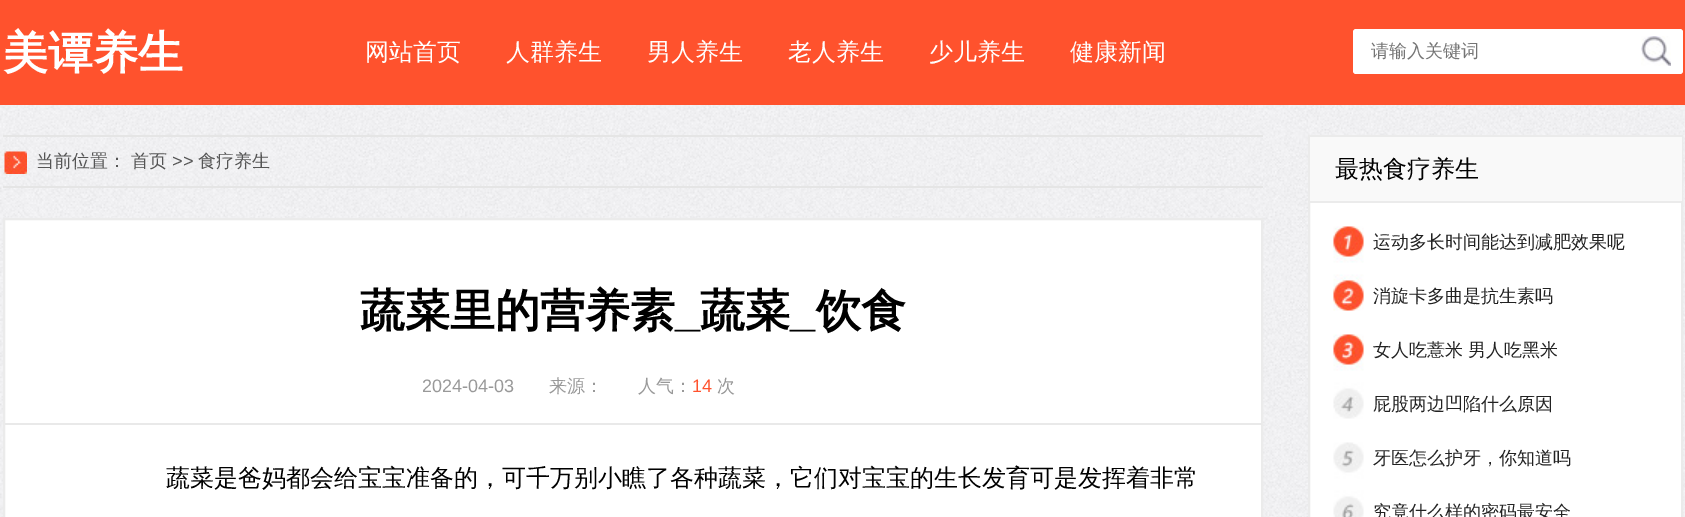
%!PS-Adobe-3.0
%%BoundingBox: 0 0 1685 517
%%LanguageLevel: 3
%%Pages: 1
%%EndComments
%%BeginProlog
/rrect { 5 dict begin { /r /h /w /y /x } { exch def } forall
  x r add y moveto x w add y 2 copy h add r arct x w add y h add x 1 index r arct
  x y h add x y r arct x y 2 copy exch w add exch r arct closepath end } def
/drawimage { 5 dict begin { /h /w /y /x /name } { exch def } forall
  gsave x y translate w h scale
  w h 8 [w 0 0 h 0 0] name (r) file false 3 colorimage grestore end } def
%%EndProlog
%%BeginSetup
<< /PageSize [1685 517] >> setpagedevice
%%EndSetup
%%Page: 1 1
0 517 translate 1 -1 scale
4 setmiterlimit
1 setgray
0 0 1685 517 rectfill
(images/1.raw) 0 105 1685 412 drawimage
1 0.322 0.176 setrgbcolor
0 0 1685 105 rectfill
1 setgray
1353 29 330 45 3 rrect fill
(images/2.raw) 1641 36 30 30 drawimage
(images/3.raw) 4 151 23 23 drawimage
0.898 setgray
3 135 1260 2 rectfill
3 186 1260 2 rectfill
1 setgray
newpath 4 219 moveto 1262 219 lineto 1262 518 lineto 4 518 lineto closepath gsave fill grestore
0.922 setgray
2 setlinewidth
stroke
0.914 setgray
5 423 1257 2 rectfill
1 setgray
1310 203 371 314 rectfill
0.922 setgray
1309 136 373 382 rectstroke
0.976 setgray
1310 137 372 64 rectfill
0.922 setgray
1310 201 372 2 rectfill
(images/4.raw) 1333 226 31 291 drawimage
/WenQuanYiZenHei-Bold [45 0 0 -45 0 0] selectfont
1 setgray
3 68 moveto (美谭养生) show
/WenQuanYiZenHei-Medium [24 0 0 -24 0 0] selectfont
365 60 moveto (网站首页) show
506 60 moveto (人群养生) show
647 60 moveto (男人养生) show
788 60 moveto (老人养生) show
929 60 moveto (少儿养生) show
1070 60 moveto (健康新闻) show
/WenQuanYiZenHei-Medium [18 0 0 -18 0 0] selectfont
0.459 setgray
1371 57 moveto (请输入关键词) show
0.333 setgray
36 167 moveto (当前位置：) show
131 167 moveto (首页) show
/LiberationSans-Regular [18 0 0 -18 0 0] selectfont
172 167 moveto (>>) show
/WenQuanYiZenHei-Medium [18 0 0 -18 0 0] selectfont
198 167 moveto (食疗养生) show
/WenQuanYiZenHei-Bold [45 0 0 -45 0 0] selectfont
0 setgray
360 326 moveto (蔬菜里的营养素) show
/LiberationSans-Bold [45 0 0 -45 0 0] selectfont
675 326 moveto (_) show
/WenQuanYiZenHei-Bold [45 0 0 -45 0 0] selectfont
700 326 moveto (蔬菜) show
/LiberationSans-Bold [45 0 0 -45 0 0] selectfont
790 326 moveto (_) show
/WenQuanYiZenHei-Bold [45 0 0 -45 0 0] selectfont
816 326 moveto (饮食) show
/LiberationSans-Regular [18 0 0 -18 0 0] selectfont
0.6 setgray
422 392 moveto (2024-04-03) show
/WenQuanYiZenHei-Medium [18 0 0 -18 0 0] selectfont
549 392 moveto (来源：) show
638 392 moveto (人气：) show
/LiberationSans-Regular [18 0 0 -18 0 0] selectfont
1 0.322 0.176 setrgbcolor
692 392 moveto (14) show
/WenQuanYiZenHei-Medium [18 0 0 -18 0 0] selectfont
0.6 setgray
717 392 moveto (次) show
/WenQuanYiZenHei-Medium [24 0 0 -24 0 0] selectfont
0 setgray
166 486 moveto (蔬菜是爸妈都会给宝宝准备的，可千万别小瞧了各种蔬菜，它们对宝宝的生长发育可是发挥着非常) show
1335 177 moveto (最热食疗养生) show
/WenQuanYiZenHei-Medium [18 0 0 -18 0 0] selectfont
0.133 setgray
1373 248 moveto (运动多长时间能达到减肥效果呢) show
1373 302 moveto (消旋卡多曲是抗生素吗) show
1373 356 moveto (女人吃薏米 男人吃黑米) show
1373 410 moveto (屁股两边凹陷什么原因) show
1373 464 moveto (牙医怎么护牙，你知道吗) show
1373 518 moveto (究竟什么样的密码最安全) show
showpage
%%EOF
